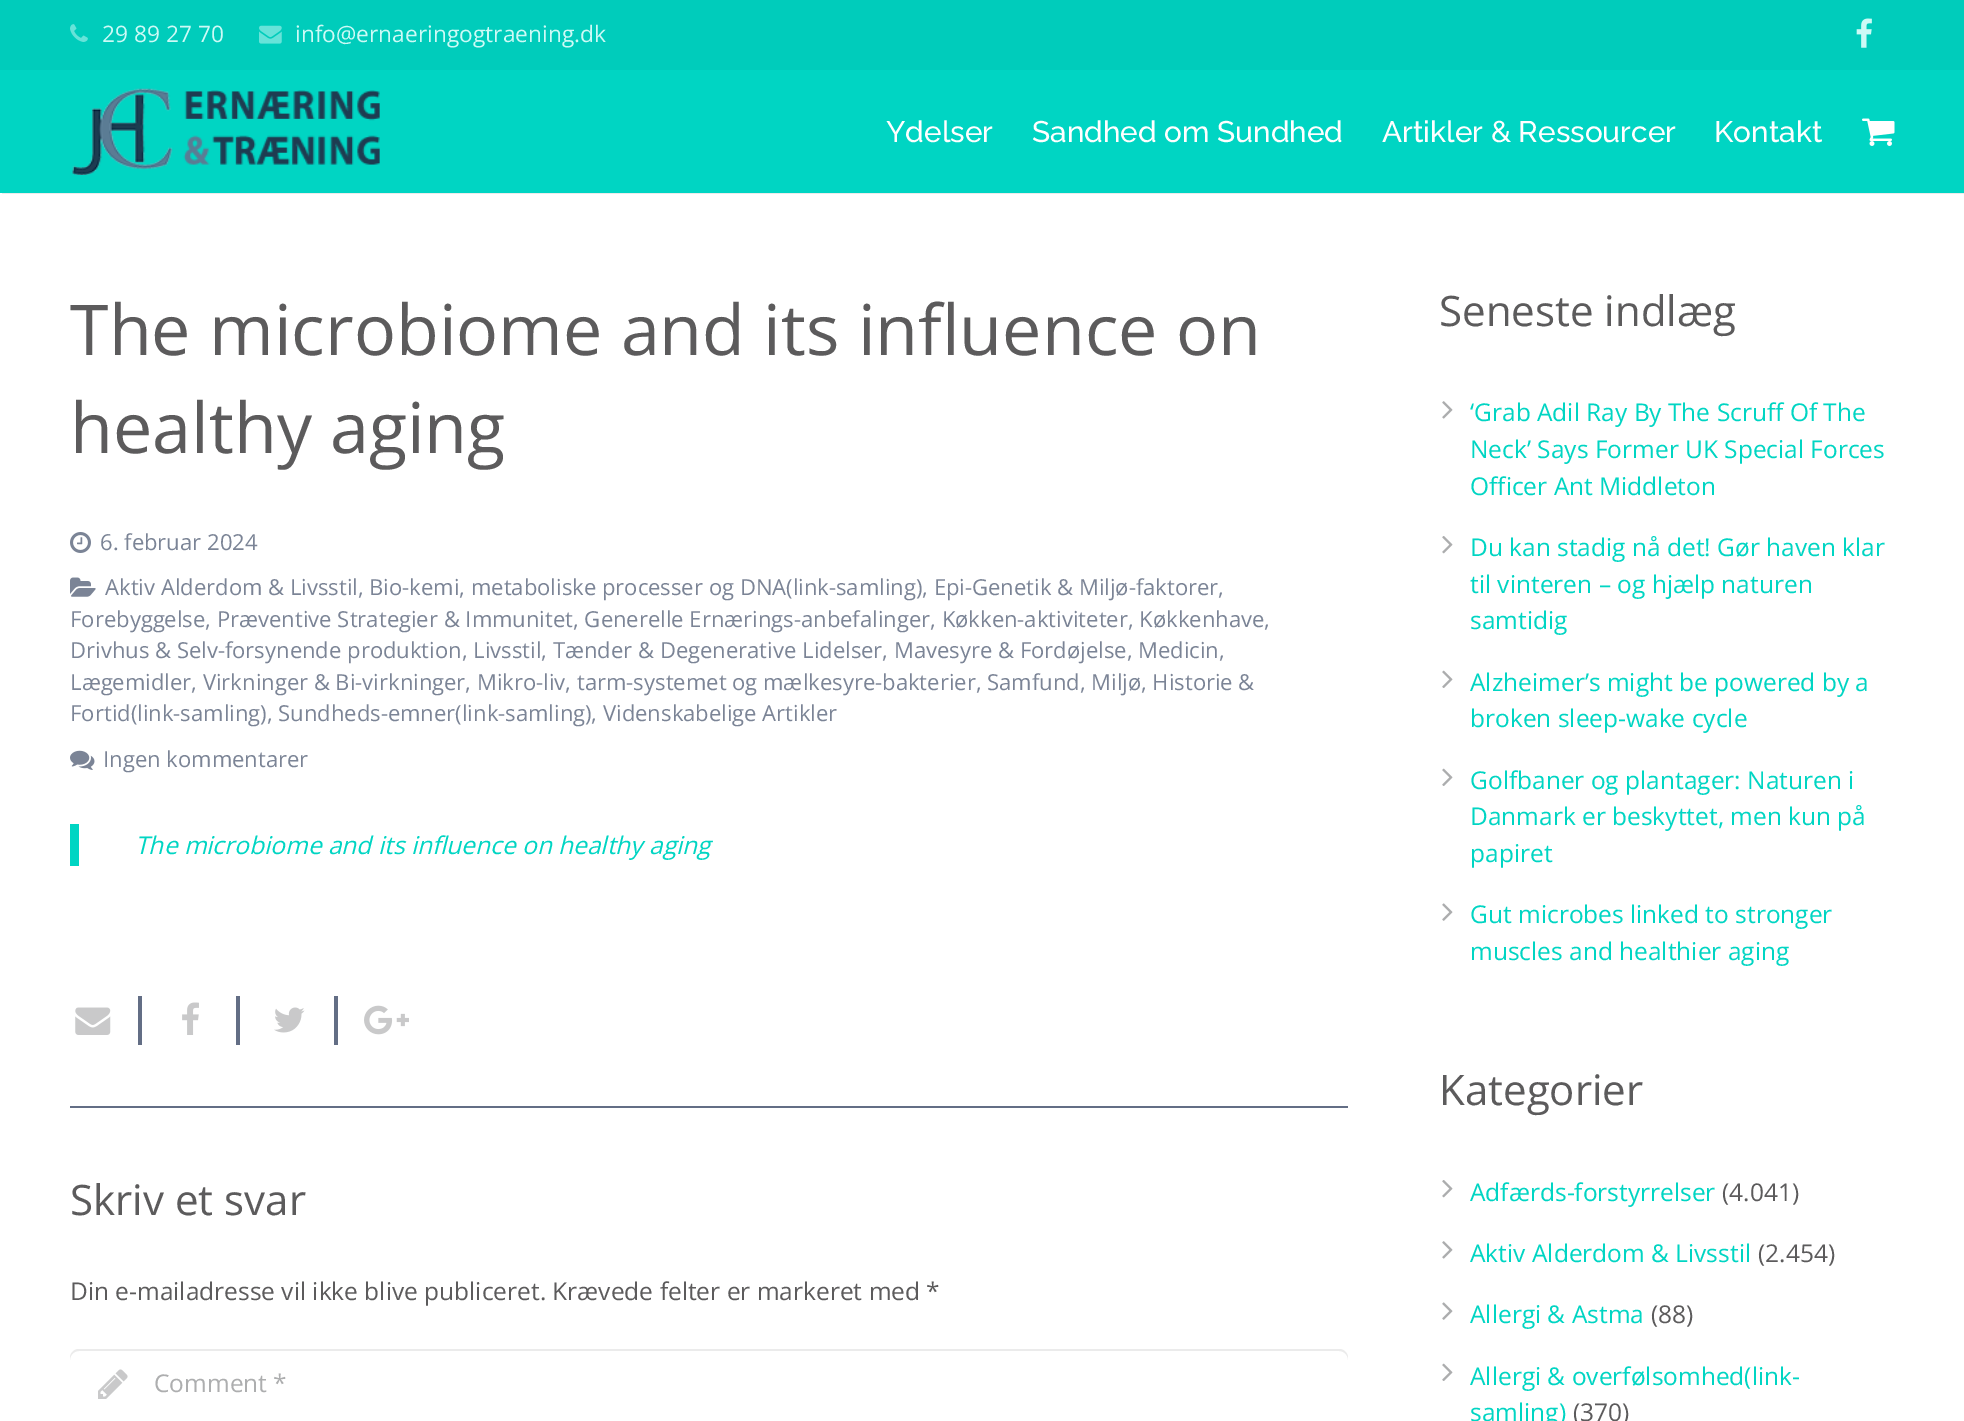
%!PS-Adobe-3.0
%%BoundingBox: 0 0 1964 1421
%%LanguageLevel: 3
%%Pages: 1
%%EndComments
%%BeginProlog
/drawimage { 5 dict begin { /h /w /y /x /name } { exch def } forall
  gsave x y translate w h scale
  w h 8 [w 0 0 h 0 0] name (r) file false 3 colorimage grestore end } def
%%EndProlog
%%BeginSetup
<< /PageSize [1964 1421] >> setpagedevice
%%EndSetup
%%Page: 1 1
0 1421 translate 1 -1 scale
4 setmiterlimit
1 setgray
0 0 1964 1421 rectfill
0 0.8 0.733 setrgbcolor
0 0 1964 70 rectfill
(images/1.raw) 70 24 18 18 drawimage
(images/2.raw) 259 25 23 19 drawimage
(images/3.raw) 1856 18 16 30 drawimage
0.922 setgray
2 193 1962 1 rectfill
0 0.835 0.765 setrgbcolor
0 70 1964 123 rectfill
(images/4.raw) 72 88 308 87 drawimage
(images/5.raw) 1862 118 33 28 drawimage
(images/6.raw) 70 532 21 21 drawimage
(images/7.raw) 70 577 26 20 drawimage
(images/8.raw) 70 750 25 20 drawimage
70 824 9 42 rectfill
0.388 0.431 0.522 setrgbcolor
138 996 4 49 rectfill
(images/9.raw) 75 1007 36 28 drawimage
236 996 4 49 rectfill
(images/10.raw) 182 1002 17 33 drawimage
334 996 4 49 rectfill
(images/11.raw) 274 1007 31 26 drawimage
(images/12.raw) 364 1005 45 30 drawimage
70 1106 1278 2 rectfill
(images/13.raw) 98 1369 30 30 drawimage
0.922 setgray
newpath 79 1351 moveto 1339 1351 lineto 1344 1351 1348 1355 1348 1360 curveto 1348 1358 lineto 1348 1353 1344 1349 1339 1349 curveto 79 1349 lineto 74 1349 70 1353 70 1358 curveto 70 1360 lineto 70 1355 74 1351 79 1351 curveto closepath fill
(images/14.raw) 1442 401 11 18 drawimage
(images/15.raw) 1442 536 11 18 drawimage
(images/16.raw) 1442 670 11 18 drawimage
(images/16.raw) 1442 768 11 18 drawimage
(images/17.raw) 1442 903 11 18 drawimage
(images/15.raw) 1442 1180 11 18 drawimage
(images/14.raw) 1442 1241 11 18 drawimage
(images/17.raw) 1442 1302 11 18 drawimage
(images/16.raw) 1442 1363 11 18 drawimage
/OpenSans-Regular [22.75 0 0 -22.75 0 0] selectfont
0.804 0.98 0.965 setrgbcolor
102 42 moveto (29 89 27 70) show
295 42 moveto (info@ernaeringogtraening.dk) show
/Raleway-Thin [29.75 0 0 -29.75 0 0] selectfont
1 setgray
886 142 moveto (Ydelser) show
1032 142 moveto (Sandhed om Sundhed) show
1382 142 moveto (Artikler & Ressourcer) show
1714 142 moveto (Kontakt) show
/OpenSans-Regular [70 0 0 -70 0 0] selectfont
0.361 0.357 0.361 setrgbcolor
70 355 moveto (The microbiome and its influence on) show
70 453 moveto (healthy aging) show
/OpenSans-Regular [22.05 0 0 -22.05 0 0] selectfont
0.482 0.518 0.588 setrgbcolor
100 550 moveto (6. februar 2024) show
105 595 moveto (Aktiv Alderdom & Livsstil, Bio-kemi, metaboliske processer og DNA\(link-samling\), Epi-Genetik & Miljø-faktorer,) show
70 627 moveto (Forebyggelse, Præventive Strategier & Immunitet, Generelle Ernærings-anbefalinger, Køkken-aktiviteter, Køkkenhave,) show
70 658 moveto (Drivhus & Selv-forsynende produktion, Livsstil, Tænder & Degenerative Lidelser, Mavesyre & Fordøjelse, Medicin,) show
70 690 moveto (Lægemidler, Virkninger & Bi-virkninger, Mikro-liv, tarm-systemet og mælkesyre-bakterier, Samfund, Miljø, Historie &) show
70 721 moveto (Fortid\(link-samling\), Sundheds-emner\(link-samling\), Videnskabelige Artikler) show
103 767 moveto (Ingen kommentarer) show
/OpenSans-Italic [24.5 0 0 -24.5 0 0] selectfont
0 0.835 0.765 setrgbcolor
135 854 moveto (The microbiome and its influence on healthy aging) show
/OpenSans-Regular [42 0 0 -42 0 0] selectfont
0.361 0.357 0.361 setrgbcolor
70 1215 moveto (Skriv et svar) show
/OpenSans-Regular [24.5 0 0 -24.5 0 0] selectfont
70 1300 moveto (Din e-mailadresse vil ikke blive publiceret. Krævede felter er markeret med *) show
0.678 0.682 0.686 setrgbcolor
154 1392 moveto (Comment *) show
/OpenSans-Regular [42 0 0 -42 0 0] selectfont
0.361 0.357 0.361 setrgbcolor
1439 326 moveto (Seneste indlæg) show
/OpenSans-Regular [24.5 0 0 -24.5 0 0] selectfont
0 0.835 0.765 setrgbcolor
1470 421 moveto (‘Grab Adil Ray By The Scruff Of The) show
1470 458 moveto (Neck’ Says Former UK Special Forces) show
1470 495 moveto (Officer Ant Middleton) show
1470 556 moveto (Du kan stadig nå det! Gør haven klar) show
1470 593 moveto (til vinteren – og hjælp naturen) show
1470 629 moveto (samtidig) show
1470 691 moveto (Alzheimer’s might be powered by a) show
1470 727 moveto (broken sleep-wake cycle) show
1470 789 moveto (Golfbaner og plantager: Naturen i) show
1470 825 moveto (Danmark er beskyttet, men kun på) show
1470 862 moveto (papiret) show
1470 923 moveto (Gut microbes linked to stronger) show
1470 960 moveto (muscles and healthier aging) show
/OpenSans-Regular [42 0 0 -42 0 0] selectfont
0.361 0.357 0.361 setrgbcolor
1439 1105 moveto (Kategorier) show
/OpenSans-Regular [24.5 0 0 -24.5 0 0] selectfont
0 0.835 0.765 setrgbcolor
1470 1201 moveto (Adfærds-forstyrrelser) show
0.361 0.357 0.361 setrgbcolor
1722 1201 moveto (\(4.041\)) show
0 0.835 0.765 setrgbcolor
1470 1262 moveto (Aktiv Alderdom & Livsstil) show
0.361 0.357 0.361 setrgbcolor
1758 1262 moveto (\(2.454\)) show
0 0.835 0.765 setrgbcolor
1470 1323 moveto (Allergi & Astma) show
0.361 0.357 0.361 setrgbcolor
1651 1323 moveto (\(88\)) show
0 0.835 0.765 setrgbcolor
1470 1385 moveto (Allergi & overfølsomhed\(link-) show
1470 1421 moveto (samling\)) show
0.361 0.357 0.361 setrgbcolor
1573 1421 moveto (\(370\)) show
showpage
%%EOF
